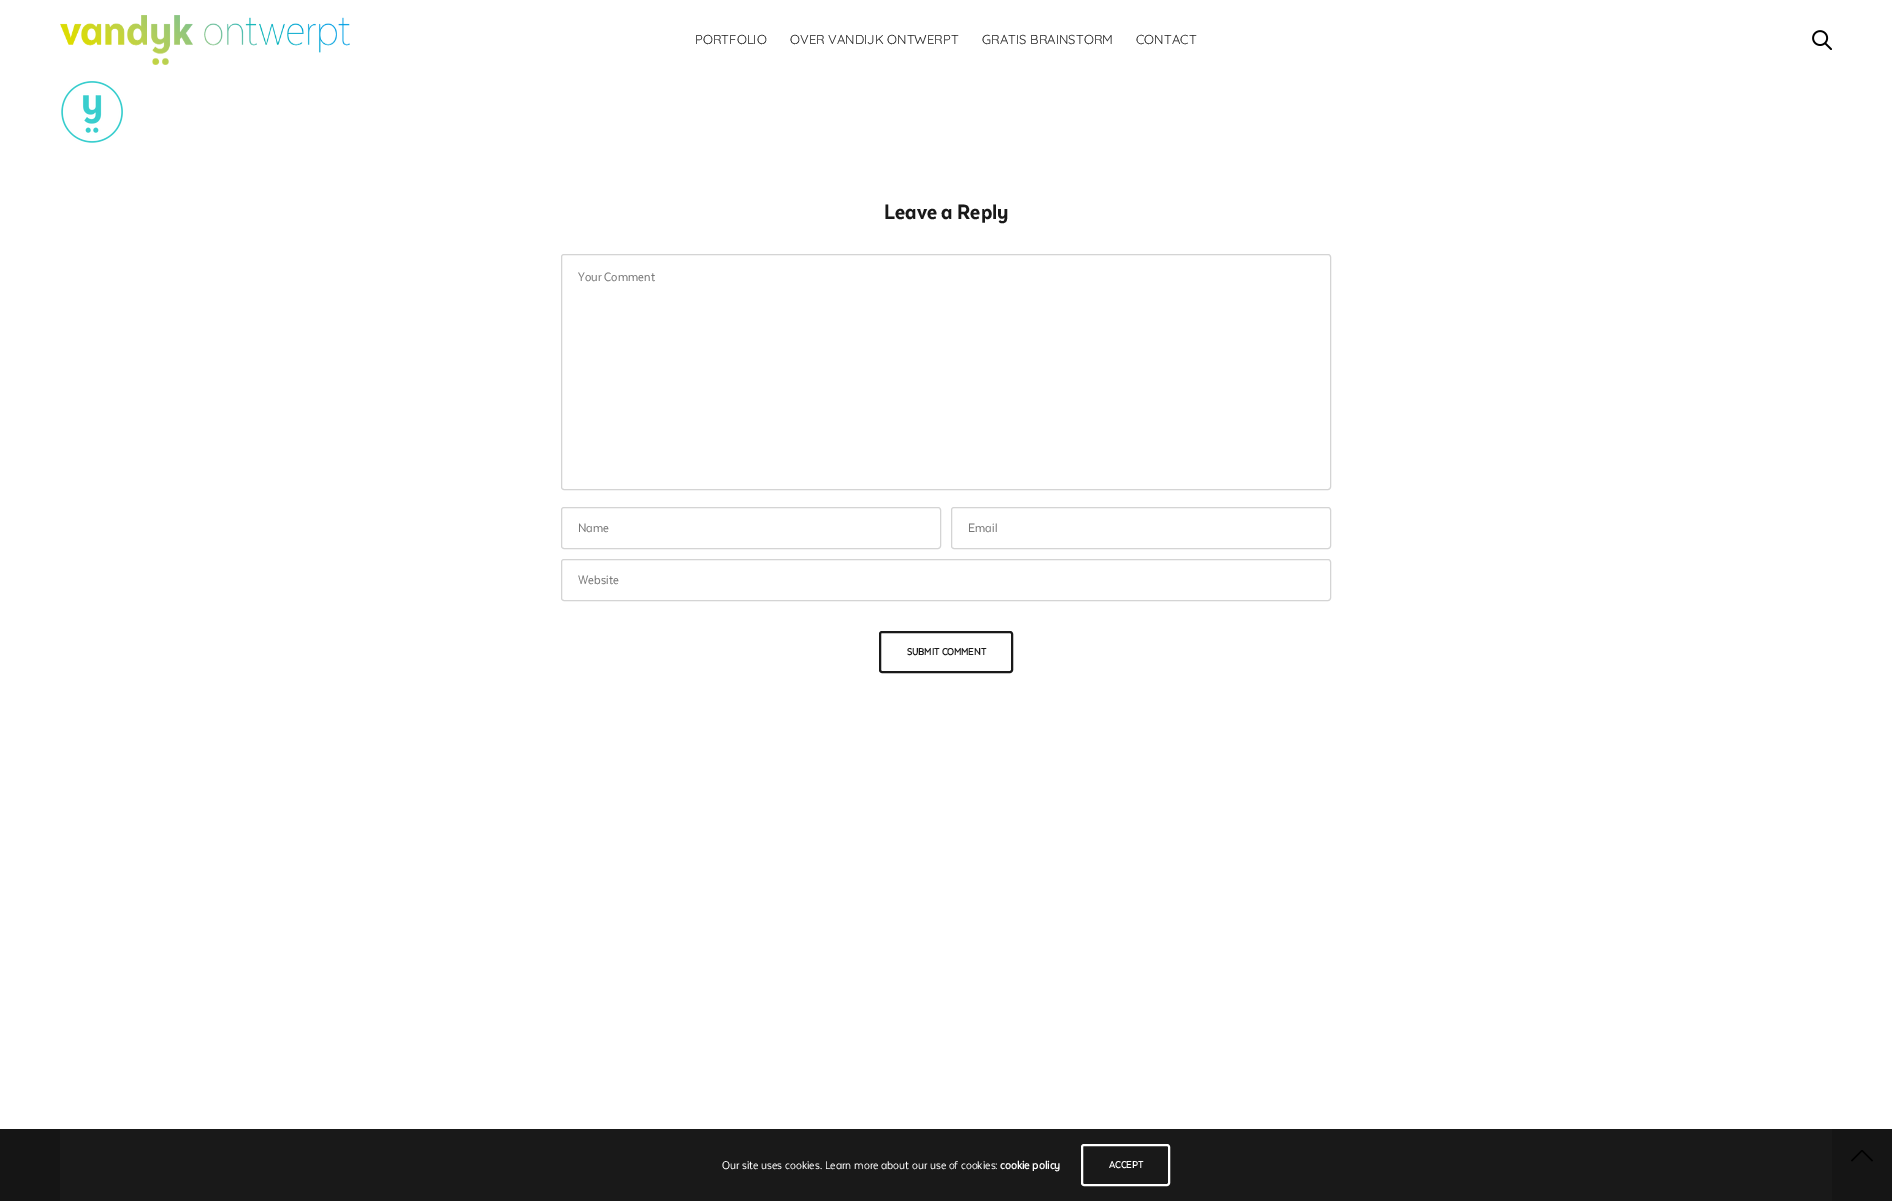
%!PS-Adobe-3.0
%%BoundingBox: 0 0 1892 1201
%%LanguageLevel: 3
%%Pages: 1
%%EndComments
%%BeginProlog
/rrect { 5 dict begin { /r /h /w /y /x } { exch def } forall
  x r add y moveto x w add y 2 copy h add r arct x w add y h add x 1 index r arct
  x y h add x y r arct x y 2 copy exch w add exch r arct closepath end } def
/drawimage { 5 dict begin { /h /w /y /x /name } { exch def } forall
  gsave x y translate w h scale
  w h 8 [w 0 0 h 0 0] name (r) file false 3 colorimage grestore end } def
%%EndProlog
%%BeginSetup
<< /PageSize [1892 1201] >> setpagedevice
%%EndSetup
%%Page: 1 1
0 1201 translate 1 -1 scale
4 setmiterlimit
1 setgray
0 0 1892 1201 rectfill
(images/1.raw) 60 15 290 50 drawimage
(images/2.raw) 1812 30 20 20 drawimage
(images/3.raw) 61 81 62 62 drawimage
0.831 setgray
561.5 254.5 769 235 2.5 rrect stroke
561.5 507.5 379 41 2.5 rrect stroke
951.5 507.5 379 41 2.5 rrect stroke
561.5 559.5 769 41 2.5 rrect stroke
0.098 setgray
2 setlinewidth
880 632 132 40 2 rrect stroke
0.082 setgray
0 1129 1892 72 rectfill
0 setgray
1.2 setlinewidth
2 setlinejoin
newpath 1851.5 1161 moveto 1862 1150.5 lineto 1872.5 1161 lineto stroke
0.098 setgray
60 1129 1772 72 rectfill
1 setgray
2 setlinewidth
0 setlinejoin
1082 1145 87 40 2 rrect stroke
/Quicksand-Regular [13 0 0 -13 0 0] selectfont
0.098 setgray
695 44 moveto (PORTFOLIO) show
790 44 moveto (OVER VANDIJK ONTWERPT) show
982 44 moveto (GRATIS BRAINSTORM) show
1136 44 moveto (CONTACT) show
/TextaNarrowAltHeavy-Black [24 0 0 -24 0 0] selectfont
884 219 moveto (Leave a Reply) show
/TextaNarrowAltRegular-Regular [14 0 0 -14 0 0] selectfont
0.467 setgray
578 281 moveto (Your Comment) show
578 532 moveto (Name) show
968 532 moveto (Email) show
578 584 moveto (Website) show
/TextaNarrowAltRegular-Bold [11 0 0 -11 0 0] selectfont
0.098 setgray
907 655 moveto (SUBMIT COMMENT) show
/TextaNarrowAltRegular-Regular [13 0 0 -13 0 0] selectfont
1 setgray
722 1169 moveto (Our site uses cookies. Learn more about our use of cookies:) show
/TextaNarrowAltRegular-Bold [13 0 0 -13 0 0] selectfont
1000 1169 moveto (cookie policy) show
/TextaNarrowAltRegular-Bold [11 0 0 -11 0 0] selectfont
1109 1168 moveto (ACCEPT) show
showpage
%%EOF
